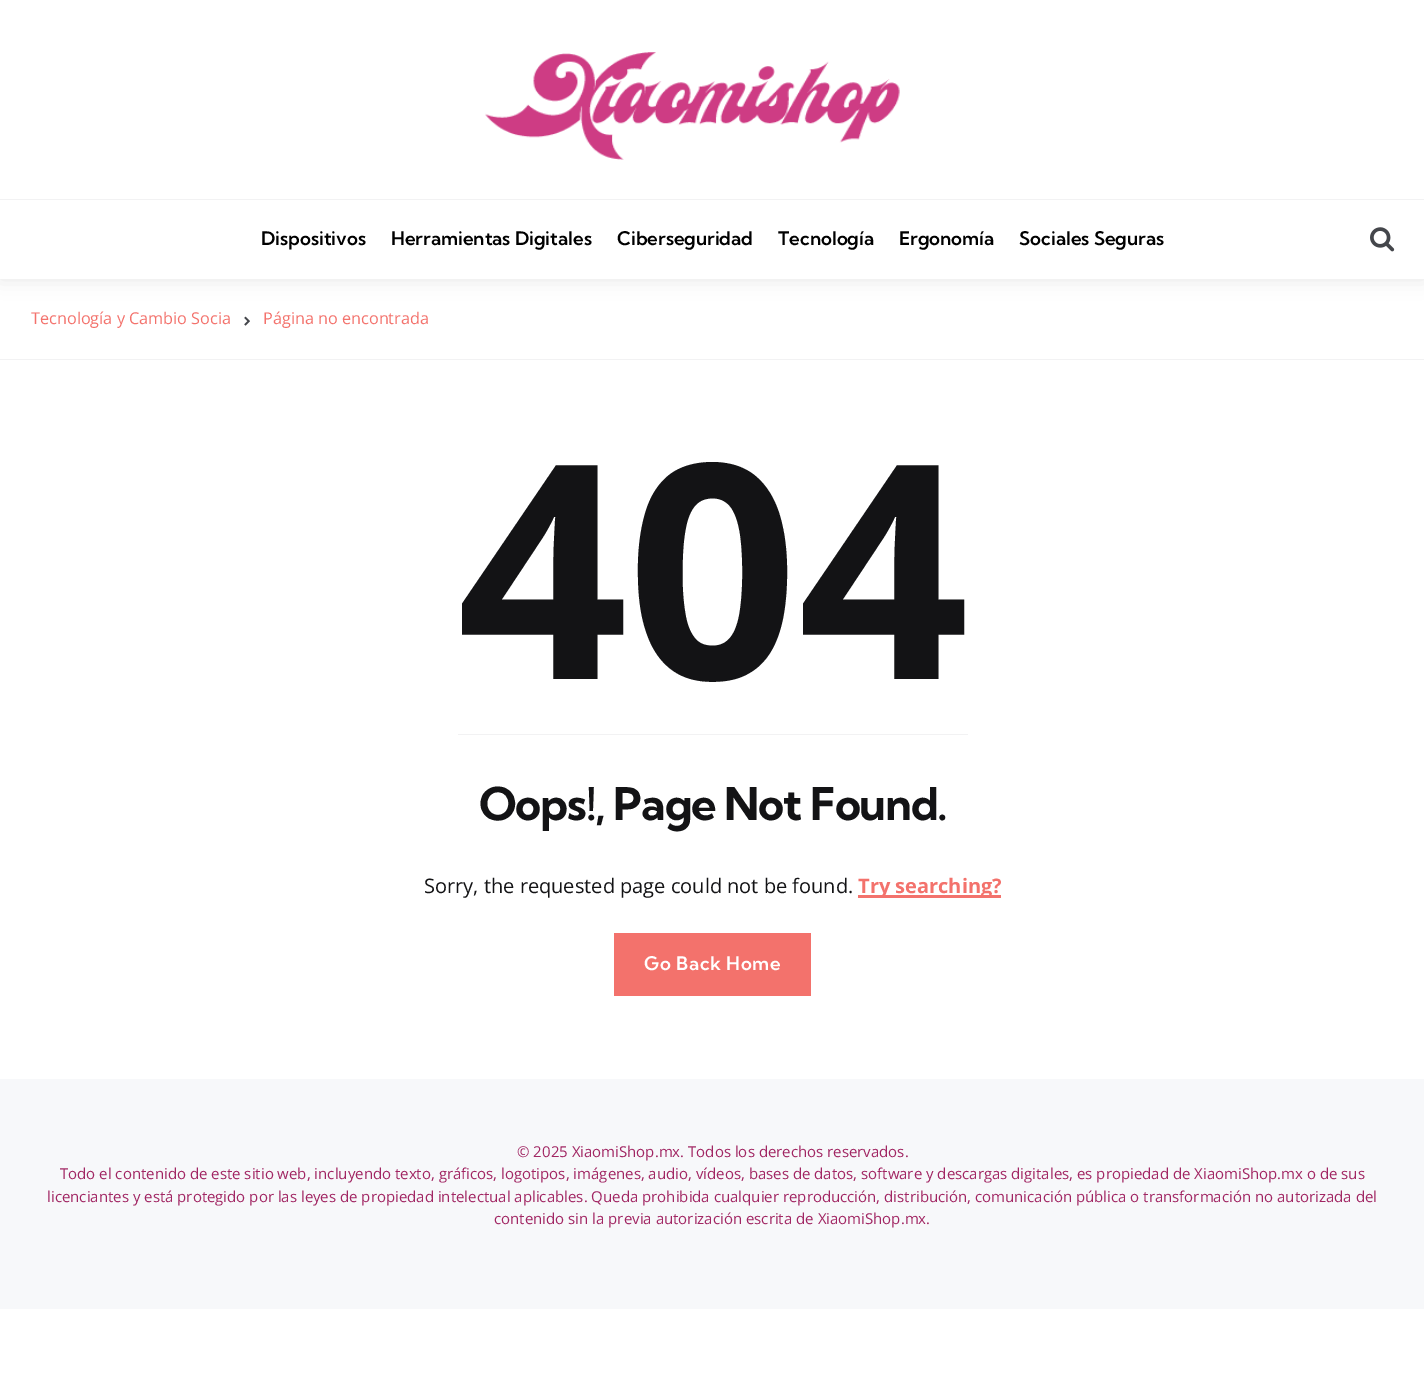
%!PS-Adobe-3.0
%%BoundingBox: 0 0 1424 1374
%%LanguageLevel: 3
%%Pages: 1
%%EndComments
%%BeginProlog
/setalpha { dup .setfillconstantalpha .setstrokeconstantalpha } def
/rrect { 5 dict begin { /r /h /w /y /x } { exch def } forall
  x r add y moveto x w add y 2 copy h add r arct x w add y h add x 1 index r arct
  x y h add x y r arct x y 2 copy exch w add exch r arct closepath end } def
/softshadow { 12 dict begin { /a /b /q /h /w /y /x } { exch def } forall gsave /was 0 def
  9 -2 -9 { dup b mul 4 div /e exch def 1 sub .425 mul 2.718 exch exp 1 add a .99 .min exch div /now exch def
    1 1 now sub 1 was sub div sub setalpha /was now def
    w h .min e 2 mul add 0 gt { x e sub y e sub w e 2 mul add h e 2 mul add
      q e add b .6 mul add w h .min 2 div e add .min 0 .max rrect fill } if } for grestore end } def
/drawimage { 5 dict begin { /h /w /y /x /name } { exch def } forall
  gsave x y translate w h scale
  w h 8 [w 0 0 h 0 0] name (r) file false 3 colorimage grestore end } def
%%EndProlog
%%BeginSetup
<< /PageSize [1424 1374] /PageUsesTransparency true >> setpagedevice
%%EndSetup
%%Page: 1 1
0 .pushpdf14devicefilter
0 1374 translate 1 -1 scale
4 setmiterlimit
1 setgray
0 0 1424 1374 rectfill
0 setgray
0 0 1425 279 0 9.5 0.1 softshadow
1 setgray
0 0 1424 279 rectfill
(images/1.raw) 485 52 415 108 drawimage
0.949 0.949 0.953 setrgbcolor
0 199 1424 1 rectfill
(images/2.raw) 1370 227 25 25 drawimage
0 359 1424 1 rectfill
(images/3.raw) 244 316 6 10 drawimage
458 734 510 1 rectfill
0.953 0.447 0.424 setrgbcolor
858 895 143 3 rectfill
614 933 197 63 rectfill
0.969 0.973 0.98 setrgbcolor
0 1079 1424 230 rectfill
/KumbhSans-SemiBold [18.75 0 0 -18.75 0 0] selectfont
0 setgray
261 245 moveto (Dispositivos) show
391 245 moveto (Herramientas Digitales) show
617 245 moveto (Ciberseguridad) show
778 245 moveto (Tecnología) show
899 245 moveto (Ergonomía) show
1019 245 moveto (Sociales Seguras) show
/OpenSans-Regular [16.25 0 0 -16.25 0 0] selectfont
0.953 0.447 0.424 setrgbcolor
31 324 moveto (Tecnología y Cambio Socia) show
263 324 moveto (Página no encontrada) show
/OpenSans-Bold [300 0 0 -300 0 0] selectfont
0.075 0.075 0.082 setrgbcolor
457 679 moveto -1.25 0 (404) ashow
/KumbhSans-Bold [45 0 0 -45 0 0] selectfont
479 820 moveto -1.25 0 (Oops!, Page Not Found.) ashow
/OpenSans-Regular [20 0 0 -20 0 0] selectfont
424 893 moveto (Sorry, the requested page could not be found.) show
/OpenSans-Bold [20 0 0 -20 0 0] selectfont
0.953 0.447 0.424 setrgbcolor
858 893 moveto (Try searching?) show
/KumbhSans-SemiBold [18.75 0 0 -18.75 0 0] selectfont
1 setgray
644 970 moveto 0.6 0 (Go Back Home) ashow
/OpenSans-Regular [15 0 0 -15 0 0] selectfont
0.631 0.149 0.388 setrgbcolor
517 1157 moveto (© 2025 XiaomiShop.mx. Todos los derechos reservados.) show
60 1179 moveto (Todo el contenido de este sitio web, incluyendo texto, gráficos, logotipos, imágenes, audio, vídeos, bases de datos, software y descargas digitales, es propiedad de XiaomiShop.mx o de sus) show
47 1202 moveto (licenciantes y está protegido por las leyes de propiedad intelectual aplicables. Queda prohibida cualquier reproducción, distribución, comunicación pública o transformación no autorizada del) show
494 1224 moveto (contenido sin la previa autorización escrita de XiaomiShop.mx.) show
.poppdf14devicefilter showpage
%%EOF
